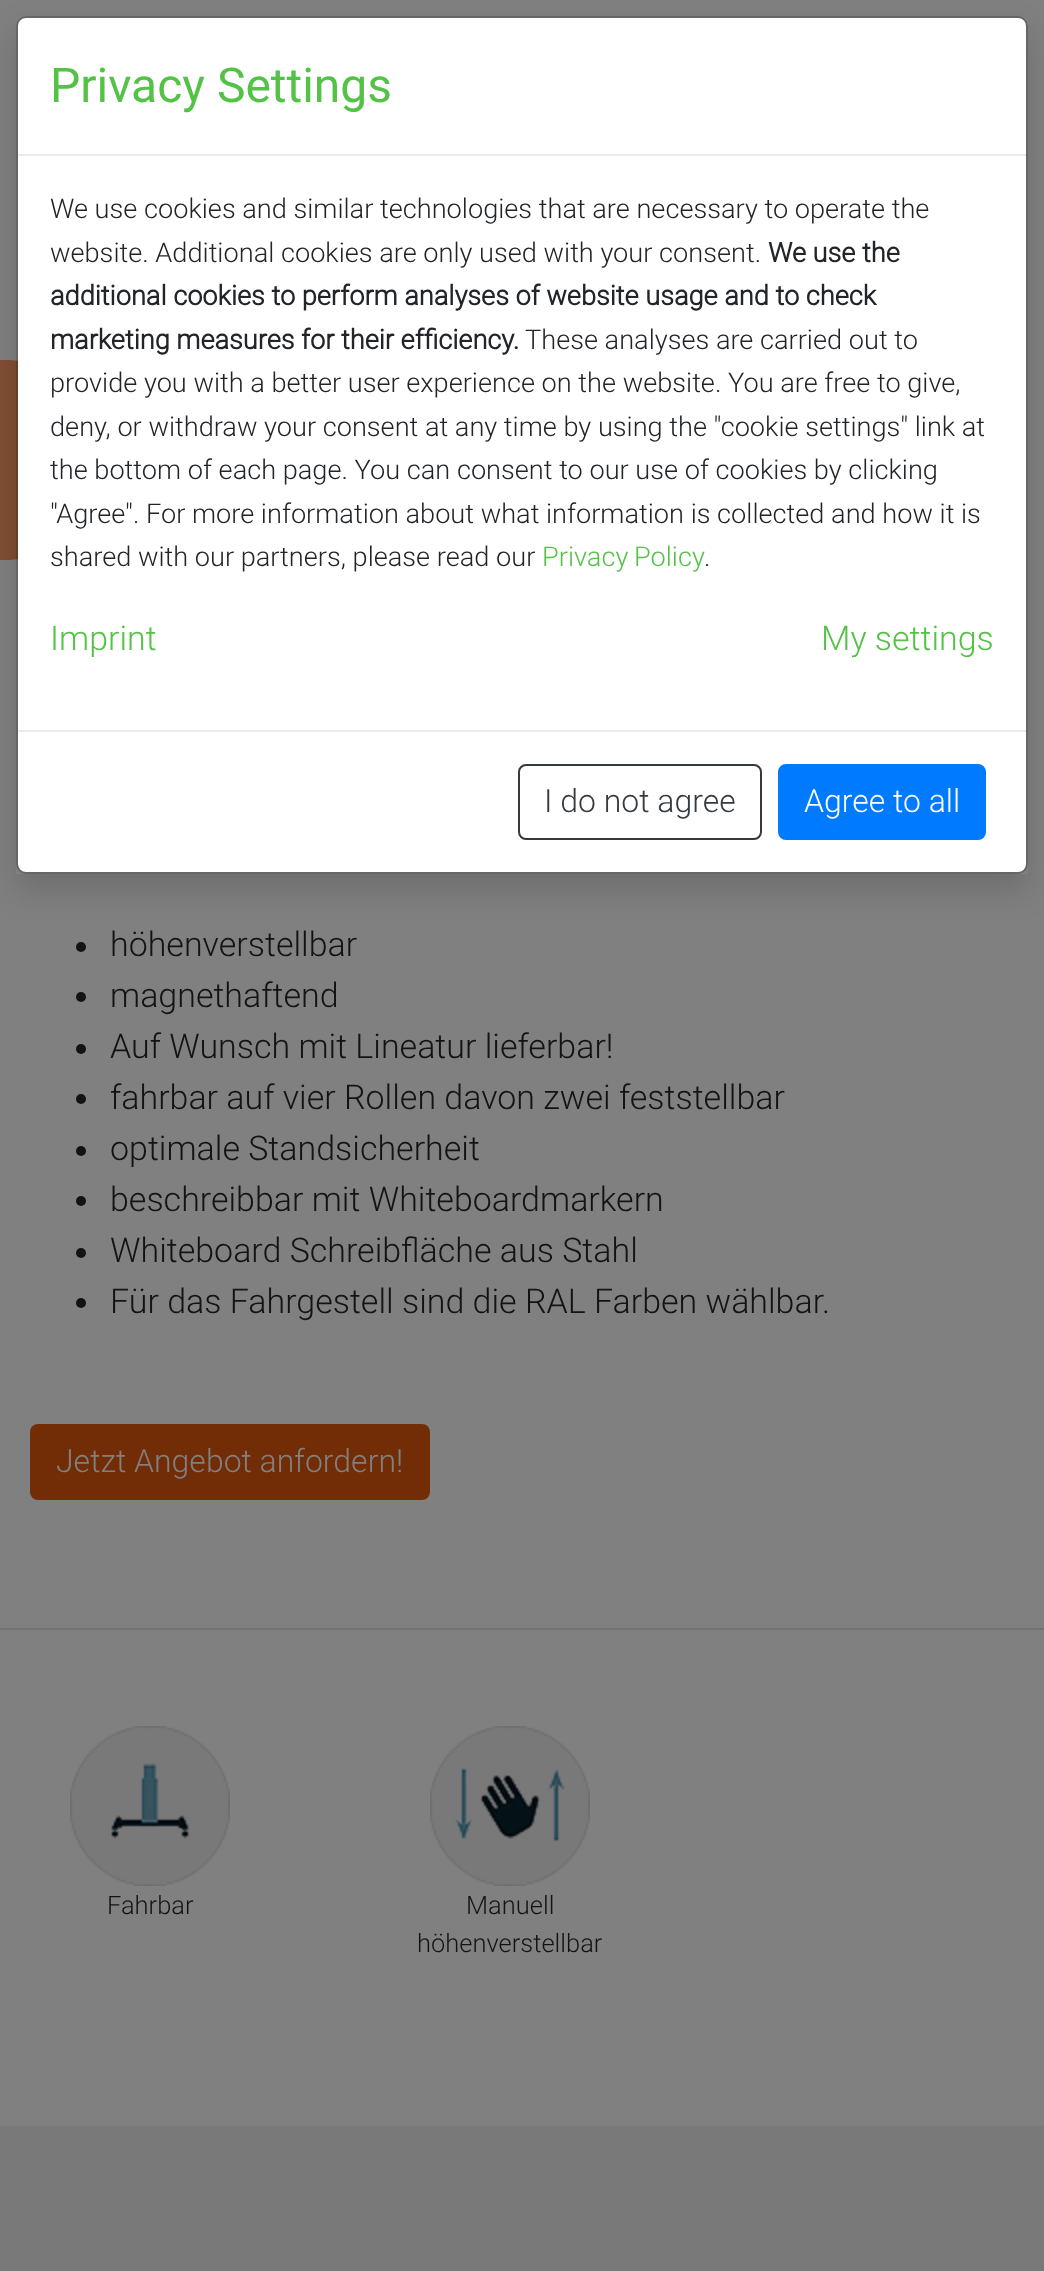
async function draw(canvas) {
  canvas.width = 1044;
  canvas.height = 2271;
  const ctx = canvas.getContext('2d');
  ctx.miterLimit = 4;
  ctx.fontKerning = 'normal';
  function label(s, x, y, font, color) {
    ctx.font = font;
    ctx.fillStyle = color;
    ctx.fillText(s, x, y);
  }
  function rect(x, y, w, h, color) {
    ctx.fillStyle = color;
    ctx.fillRect(x, y, w, h);
  }
  function roundedRect(x, y, w, h, r, color) {
    ctx.fillStyle = color;
    ctx.beginPath();
    ctx.roundRect(x, y, w, h, r);
    ctx.fill();
  }
  async function image(src, x, y, w, h) {
    const img = new Image();
    img.src = src;
    await img.decode();
    ctx.drawImage(img, x, y, w, h);
  }
  let path;

  rect(0, 0, 1044, 2271, '#808080');
  ctx.fillStyle = '#802d0099';
  ctx.beginPath();
  ctx.roundRect(0, 360, 50, 200, [0, 40, 40, 0]);
  ctx.fill();
  ctx.save();
  path = new Path2D('M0 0H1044V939H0ZM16 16H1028V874H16Z');
  ctx.clip(path, 'evenodd');
  ctx.fillStyle = '#00000026';
  ctx.filter = 'blur(16px)';
  ctx.beginPath();
  ctx.rect(16, 32, 1012, 858);
  ctx.fill();
  ctx.filter = 'none';
  ctx.restore();
  roundedRect(18, 18, 1008, 854, 8, '#fff');
  ctx.beginPath();
  ctx.roundRect(17, 17, 1010, 856, 9);
  ctx.strokeStyle = '#00000033';
  ctx.lineWidth = 2;
  ctx.stroke();
  rect(18, 154, 1008, 2, '#e9ecef');
  label('Privacy Settings', 50, 102, '48px Roboto', '#54c247');
  label('We use cookies and similar technologies that are necessary to operate the', 50, 218, '300 27.2px Roboto', '#212529');
  label('website. Additional cookies are only used with your consent.', 50, 262, '300 27.2px Roboto', '#212529');
  label('We use the', 768, 262, 'bold 27.2px Roboto', '#212529');
  label('additional cookies to perform analyses of website usage and to check', 50, 305, 'bold 27.2px Roboto', '#212529');
  label('marketing measures for their efficiency.', 50, 349, 'bold 27.2px Roboto', '#212529');
  label('These analyses are carried out to', 525, 349, '300 27.2px Roboto', '#212529');
  label('provide you with a better user experience on the website. You are free to give,', 50, 392, '300 27.2px Roboto', '#212529');
  label('deny, or withdraw your consent at any time by using the "cookie settings" link at', 50, 436, '300 27.2px Roboto', '#212529');
  label('the bottom of each page. You can consent to our use of cookies by clicking', 50, 479, '300 27.2px Roboto', '#212529');
  label('"Agree". For more information about what information is collected and how it is', 50, 523, '300 27.2px Roboto', '#212529');
  label('shared with our partners, please read our', 50, 566, '300 27.2px Roboto', '#212529');
  ctx.wordSpacing = '-1px';
  label('Privacy Policy', 542, 566, '300 27.2px Roboto', '#54c247');
  ctx.wordSpacing = '0px';
  label('.', 704, 566, '300 27.2px Roboto', '#212529');
  label('Imprint', 50, 650, '300 34px Roboto', '#54c247');
  label('My settings', 821, 650, '300 34px Roboto', '#54c247');
  rect(18, 730, 1008, 2, '#e9ecef');
  ctx.beginPath();
  ctx.roundRect(519, 765, 242, 74, 7);
  ctx.strokeStyle = '#343a40';
  ctx.stroke();
  label('I do not agree', 544, 812, '300 32px Roboto', '#343a40');
  ctx.fillStyle = '#007bff';
  ctx.beginPath();
  ctx.roundRect(779, 765, 206, 74, 7);
  ctx.fill();
  ctx.strokeStyle = '#007bff';
  ctx.stroke();
  label('Agree to all', 804, 812, '300 32px Roboto', '#fff');
  ctx.fillStyle = '#111315';
  ctx.beginPath();
  ctx.arc(81, 947, 5, 0, 2 * Math.PI);
  ctx.fill();
  label('höhenverstellbar', 110, 956, '300 34px Roboto', '#111315');
  ctx.beginPath();
  ctx.arc(81, 997, 5, 0, 2 * Math.PI);
  ctx.fill();
  label('magnethaftend', 110, 1007, '300 34px Roboto', '#111315');
  ctx.beginPath();
  ctx.arc(81, 1049, 5, 0, 2 * Math.PI);
  ctx.fill();
  label('Auf Wunsch mit Lineatur lieferbar!', 110, 1058, '300 34px Roboto', '#111315');
  ctx.beginPath();
  ctx.arc(81, 1099, 5, 0, 2 * Math.PI);
  ctx.fill();
  label('fahrbar auf vier Rollen davon zwei feststellbar', 110, 1109, '300 34px Roboto', '#111315');
  ctx.beginPath();
  ctx.arc(81, 1151, 5, 0, 2 * Math.PI);
  ctx.fill();
  label('optimale Standsicherheit', 110, 1160, '300 34px Roboto', '#111315');
  ctx.beginPath();
  ctx.arc(81, 1201, 5, 0, 2 * Math.PI);
  ctx.fill();
  label('beschreibbar mit Whiteboardmarkern', 110, 1211, '300 34px Roboto', '#111315');
  ctx.beginPath();
  ctx.arc(81, 1253, 5, 0, 2 * Math.PI);
  ctx.fill();
  label('Whiteboard Schreibfläche aus Stahl', 110, 1262, '300 34px Roboto', '#111315');
  ctx.beginPath();
  ctx.arc(81, 1303, 5, 0, 2 * Math.PI);
  ctx.fill();
  label('Für das Fahrgestell sind die RAL Farben wählbar.', 110, 1313, '300 34px Roboto', '#111315');
  roundedRect(30, 1424, 400, 76, 8, '#732d06');
  label('Jetzt Angebot anfordern!', 56, 1472, '300 32px Roboto', '#808080');
  rect(0, 1628, 1044, 2, '#737373');
  await image('assets/img1.png', 70, 1726, 160, 160);
  label('Fahrbar', 107, 1914, '300 25.5px Roboto', '#111315');
  await image('assets/img2.png', 430, 1726, 160, 160);
  label('Manuell', 466, 1914, '300 25.5px Roboto', '#111315');
  label('höhenverstellbar', 417, 1952, '300 25.5px Roboto', '#111315');
  rect(0, 2126, 1044, 145, '#7a7979');
}

draw(document.querySelector('canvas'));
